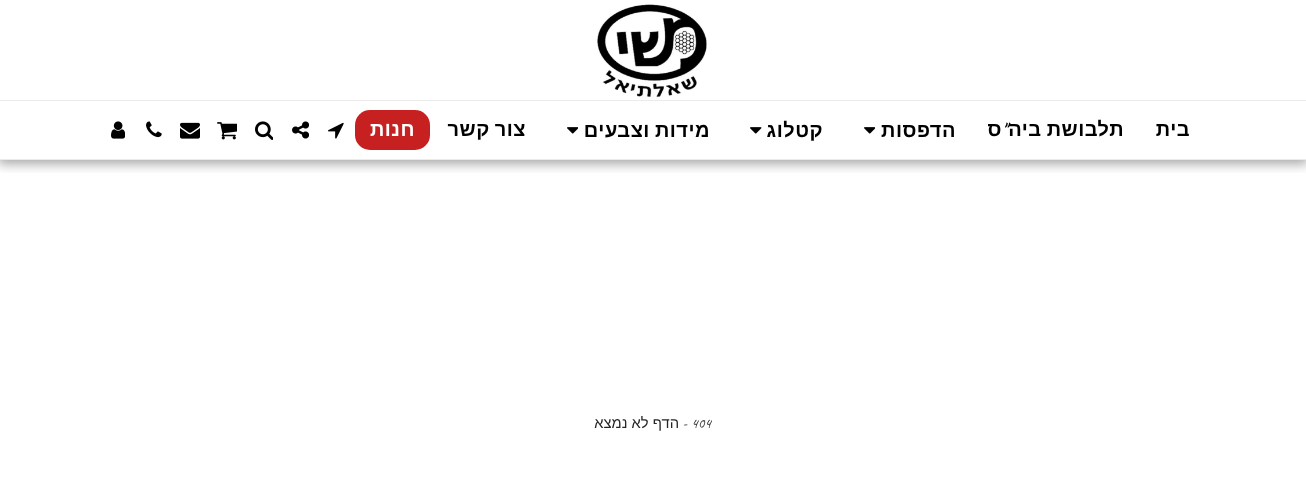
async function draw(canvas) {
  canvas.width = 1306;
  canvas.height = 481;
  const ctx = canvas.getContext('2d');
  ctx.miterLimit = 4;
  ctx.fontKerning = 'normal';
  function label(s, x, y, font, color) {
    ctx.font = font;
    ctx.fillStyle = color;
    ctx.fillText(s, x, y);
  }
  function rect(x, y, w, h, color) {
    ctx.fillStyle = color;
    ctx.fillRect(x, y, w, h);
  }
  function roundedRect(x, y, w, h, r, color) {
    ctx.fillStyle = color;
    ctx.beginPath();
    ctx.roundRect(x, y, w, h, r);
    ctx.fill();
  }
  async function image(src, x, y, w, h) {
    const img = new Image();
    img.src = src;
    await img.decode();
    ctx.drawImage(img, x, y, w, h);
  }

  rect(0, 0, 1306, 481, '#fff');
  ctx.save();
  ctx.beginPath();
  ctx.rect(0, 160, 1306, 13);
  ctx.clip();
  ctx.fillStyle = '#00000059';
  ctx.filter = 'blur(6px)';
  ctx.beginPath();
  ctx.rect(-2, 0, 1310, 164);
  ctx.fill();
  ctx.filter = 'none';
  ctx.restore();
  rect(0, 159, 1306, 1, '#ebebeb');
  await image('assets/img1.png', 597, 4, 110, 93);
  rect(0, 100, 1306, 1, '#ebebeb');
  ctx.letterSpacing = '0.5px';
  ctx.direction = 'rtl';
  label('בית', 1190, 136, 'bold 20px Liberation Sans', '#000');
  label('"', 1007, 136, 'bold 20px Caveat', '#000');
  ctx.wordSpacing = '-1px';
  label('תלבושת ביה', 1124, 136, 'bold 20px Liberation Sans', '#000');
  ctx.wordSpacing = '0px';
  label('ס', 1002, 136, 'bold 20px Liberation Sans', '#000');
  label('הדפסות', 956, 137, 'bold 20px Liberation Sans', '#000');
  await image('assets/img2.png', 864, 127, 11, 7);
  label('קטלוג', 823, 137, 'bold 20px Liberation Sans', '#000');
  await image('assets/img3.png', 750, 127, 12, 7);
  ctx.wordSpacing = '-1px';
  label('מידות וצבעים', 710, 137, 'bold 20px Liberation Sans', '#000');
  await image('assets/img2.png', 567, 127, 11, 7);
  label('צור קשר', 526, 136, 'bold 20px Liberation Sans', '#000');
  roundedRect(355, 110, 75, 40, 15, '#c62020');
  ctx.wordSpacing = '0px';
  label('חנות', 415, 136, 'bold 20px Liberation Sans', '#fff');
  await image('assets/img4.png', 328, 122, 16, 17);
  await image('assets/img5.png', 292, 121, 17, 18);
  await image('assets/img6.png', 255, 121, 18, 19);
  await image('assets/img7.png', 217, 122, 20, 18);
  await image('assets/img8.png', 180, 122, 20, 17);
  await image('assets/img9.png', 146, 121, 16, 17);
  await image('assets/img10.png', 111, 121, 14, 18);
  ctx.letterSpacing = '0px';
  ctx.direction = 'ltr';
  label('404', 691, 428, '14.75px Caveat', '#252525');
  ctx.direction = 'rtl';
  label('-', 687, 428, '14.75px Caveat', '#252525');
  label('הדף לא נמצא', 679, 428, '14.75px Liberation Sans', '#252525');
}

draw(document.querySelector('canvas'));
